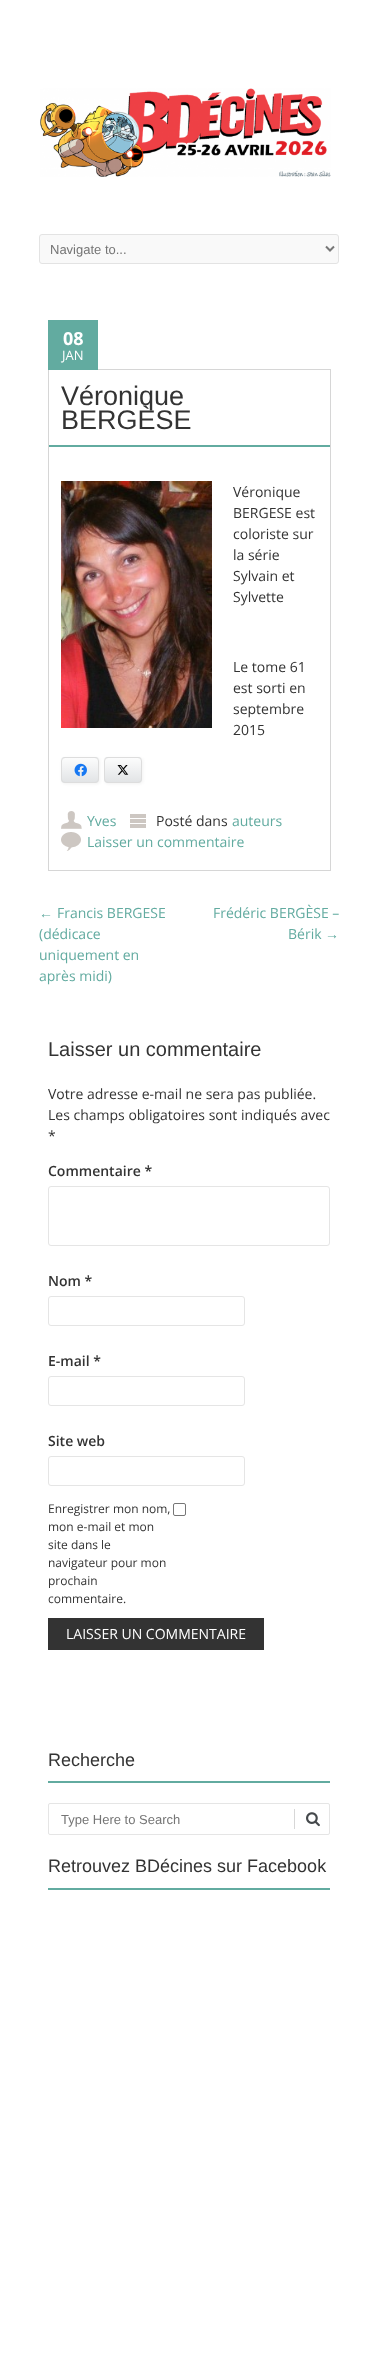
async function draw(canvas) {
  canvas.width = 378;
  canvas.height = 2365;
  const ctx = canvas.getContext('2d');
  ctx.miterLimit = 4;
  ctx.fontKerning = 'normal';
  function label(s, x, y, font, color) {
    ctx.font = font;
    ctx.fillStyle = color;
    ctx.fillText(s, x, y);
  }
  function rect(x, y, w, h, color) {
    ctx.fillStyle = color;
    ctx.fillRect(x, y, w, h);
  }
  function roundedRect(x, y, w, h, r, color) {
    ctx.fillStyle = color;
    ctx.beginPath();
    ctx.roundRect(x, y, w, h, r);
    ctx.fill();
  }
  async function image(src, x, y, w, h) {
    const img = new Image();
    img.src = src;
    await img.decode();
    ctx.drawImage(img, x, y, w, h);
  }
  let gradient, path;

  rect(0, 0, 378, 2365, '#fff');
  await image('assets/img1.png', 40, 88, 291, 89);
  ctx.fillStyle = '#f9f9f9';
  ctx.beginPath();
  ctx.roundRect(39.5, 234.5, 299, 29, 2.5);
  ctx.fill();
  ctx.strokeStyle = '#e3e3e3';
  ctx.stroke();
  path = new Path2D('M326 246.5L330 250.5L334 246.5');
  ctx.strokeStyle = '#777';
  ctx.lineWidth = 2;
  ctx.stroke(path);
  label('Navigate to...', 50, 254, '13px Liberation Sans', '#757575');
  ctx.strokeStyle = '#d6d6d6';
  ctx.lineWidth = 1;
  ctx.strokeRect(48.5, 369.5, 282, 501);
  rect(48, 320, 50, 50, '#62aba0');
  label('08', 63, 345, 'bold 18px Open Sans', '#fff');
  label('JAN', 62, 360, '13px Open Sans', '#fff');
  rect(49, 445, 281, 2, '#62aba0');
  label('Véronique', 61, 405, '27px Liberation Sans', '#333');
  label('BERGÈSE', 61, 429, '27px Liberation Sans', '#333');
  await image('assets/img2.png', 61, 481, 151, 247);
  label('Véronique', 233, 497, '14px Open Sans', '#333');
  label('BERGESE est', 233, 518, '14px Open Sans', '#333');
  label('coloriste sur', 233, 539, '14px Open Sans', '#333');
  label('la série', 233, 560, '14px Open Sans', '#333');
  label('Sylvain et', 233, 581, '14px Open Sans', '#333');
  label('Sylvette', 233, 602, '14px Open Sans', '#333');
  label('Le tome 61', 233, 672, '14px Open Sans', '#333');
  label('est sorti en', 233, 693, '14px Open Sans', '#333');
  label('septembre', 233, 714, '14px Open Sans', '#333');
  label('2015', 233, 735, '14px Open Sans', '#333');
  ctx.fillStyle = '#0000000d';
  ctx.filter = 'blur(1.5px)';
  ctx.beginPath();
  ctx.roundRect(62, 758, 38, 26, 4);
  ctx.fill();
  ctx.filter = 'none';
  roundedRect(61, 757, 38, 26, 4, '#e2e4e6');
  ctx.save();
  ctx.beginPath();
  ctx.roundRect(61, 757, 38, 26, 4);
  ctx.clip();
  gradient = ctx.createLinearGradient(80, 758, 80, 782);
  gradient.addColorStop(0, '#ffffffe6');
  gradient.addColorStop(1, '#ffffff00');
  ctx.fillStyle = gradient;
  ctx.fillRect(61, 758, 38, 23);
  ctx.restore();
  ctx.beginPath();
  ctx.roundRect(61.5, 757.5, 37, 25, 3.5);
  ctx.strokeStyle = '#ddd';
  ctx.stroke();
  await image('assets/img3.png', 74, 763, 13, 14);
  ctx.fillStyle = '#0000000d';
  ctx.filter = 'blur(1.5px)';
  ctx.beginPath();
  ctx.roundRect(105, 758, 38, 26, 4);
  ctx.fill();
  ctx.filter = 'none';
  roundedRect(104, 757, 38, 26, 4, '#e2e4e6');
  ctx.save();
  ctx.beginPath();
  ctx.roundRect(104, 757, 38, 26, 4);
  ctx.clip();
  gradient = ctx.createLinearGradient(123, 758, 123, 782);
  gradient.addColorStop(0, '#ffffffe6');
  gradient.addColorStop(1, '#ffffff00');
  ctx.fillStyle = gradient;
  ctx.fillRect(104, 758, 38, 23);
  ctx.restore();
  ctx.beginPath();
  ctx.roundRect(104.5, 757.5, 37, 25, 3.5);
  ctx.stroke();
  await image('assets/img4.png', 117, 765, 12, 10);
  await image('assets/img5.png', 61, 811, 21, 18);
  label('Yves', 87, 826, '14px Open Sans', '#62aba0');
  await image('assets/img6.png', 130, 814, 16, 14);
  label('Posté dans', 156, 826, '14px Open Sans', '#333');
  label('auteurs', 232, 826, '14px Open Sans', '#62aba0');
  await image('assets/img7.png', 61, 832, 20, 19);
  label('Laisser un commentaire', 87, 847, '14px Open Sans', '#62aba0');
  label('←', 39, 918, '14px Liberation Sans', '#62aba0');
  label('Francis BERGESE', 57, 918, '14px Open Sans', '#62aba0');
  label('(dédicace', 39, 939, '14px Open Sans', '#62aba0');
  label('uniquement en', 39, 960, '14px Open Sans', '#62aba0');
  label('après midi)', 39, 981, '14px Open Sans', '#62aba0');
  label('Frédéric BERGÈSE –', 213, 918, '14px Open Sans', '#62aba0');
  label('Bérik', 288, 939, '14px Open Sans', '#62aba0');
  label('→', 325, 939, '14px Liberation Sans', '#62aba0');
  label('Laisser un commentaire', 48, 1056, '20px Liberation Sans', '#333');
  label('Votre adresse e-mail ne sera pas publiée.', 48, 1099, '14px Open Sans', '#333');
  label('Les champs obligatoires sont indiqués avec', 48, 1120, '14px Open Sans', '#333');
  label('*', 48, 1141, '14px Open Sans', '#333');
  label('Commentaire *', 48, 1176, '600 14px Open Sans', '#333');
  ctx.beginPath();
  ctx.roundRect(48.5, 1186.5, 281, 59, 2.5);
  ctx.strokeStyle = '#e5e5e5';
  ctx.stroke();
  label('Nom *', 48, 1286, '600 14px Open Sans', '#333');
  ctx.beginPath();
  ctx.roundRect(48.5, 1296.5, 196, 29, 2.5);
  ctx.stroke();
  label('E-mail *', 48, 1366, '600 14px Open Sans', '#333');
  ctx.beginPath();
  ctx.roundRect(48.5, 1376.5, 196, 29, 2.5);
  ctx.stroke();
  label('Site web', 48, 1446, '600 14px Open Sans', '#333');
  ctx.beginPath();
  ctx.roundRect(48.5, 1456.5, 196, 29, 2.5);
  ctx.stroke();
  label('Enregistrer mon nom,', 48, 1513, '12px Open Sans', '#333');
  label('mon e-mail et mon', 48, 1531, '12px Open Sans', '#333');
  label('site dans le', 48, 1549, '12px Open Sans', '#333');
  label('navigateur pour mon', 48, 1567, '12px Open Sans', '#333');
  label('prochain', 48, 1585, '12px Open Sans', '#333');
  label('commentaire.', 48, 1603, '12px Open Sans', '#333');
  ctx.beginPath();
  ctx.roundRect(173.5, 1503.5, 12, 12, 1.5);
  ctx.strokeStyle = '#767676';
  ctx.stroke();
  rect(48, 1618, 216, 32, '#333');
  label('LAISSER UN COMMENTAIRE', 66, 1639, '14px Open Sans', '#fff');
  rect(48, 1781, 282, 2, '#62aba0');
  label('Recherche', 48, 1766, '18px Liberation Sans', '#333');
  ctx.beginPath();
  ctx.roundRect(48.5, 1803.5, 281, 31, 1.5);
  ctx.strokeStyle = '#e5e5e5';
  ctx.stroke();
  label('Type Here to Search', 61, 1824, '13px Liberation Sans', '#757575');
  rect(294, 1809, 1, 20, '#d7d7d7');
  await image('assets/img8.png', 306, 1812, 14, 15);
  rect(48, 1888, 282, 2, '#62aba0');
  label('Retrouvez BDécines sur Facebook', 48, 1872, '18px Liberation Sans', '#333');
}

draw(document.querySelector('canvas'));
